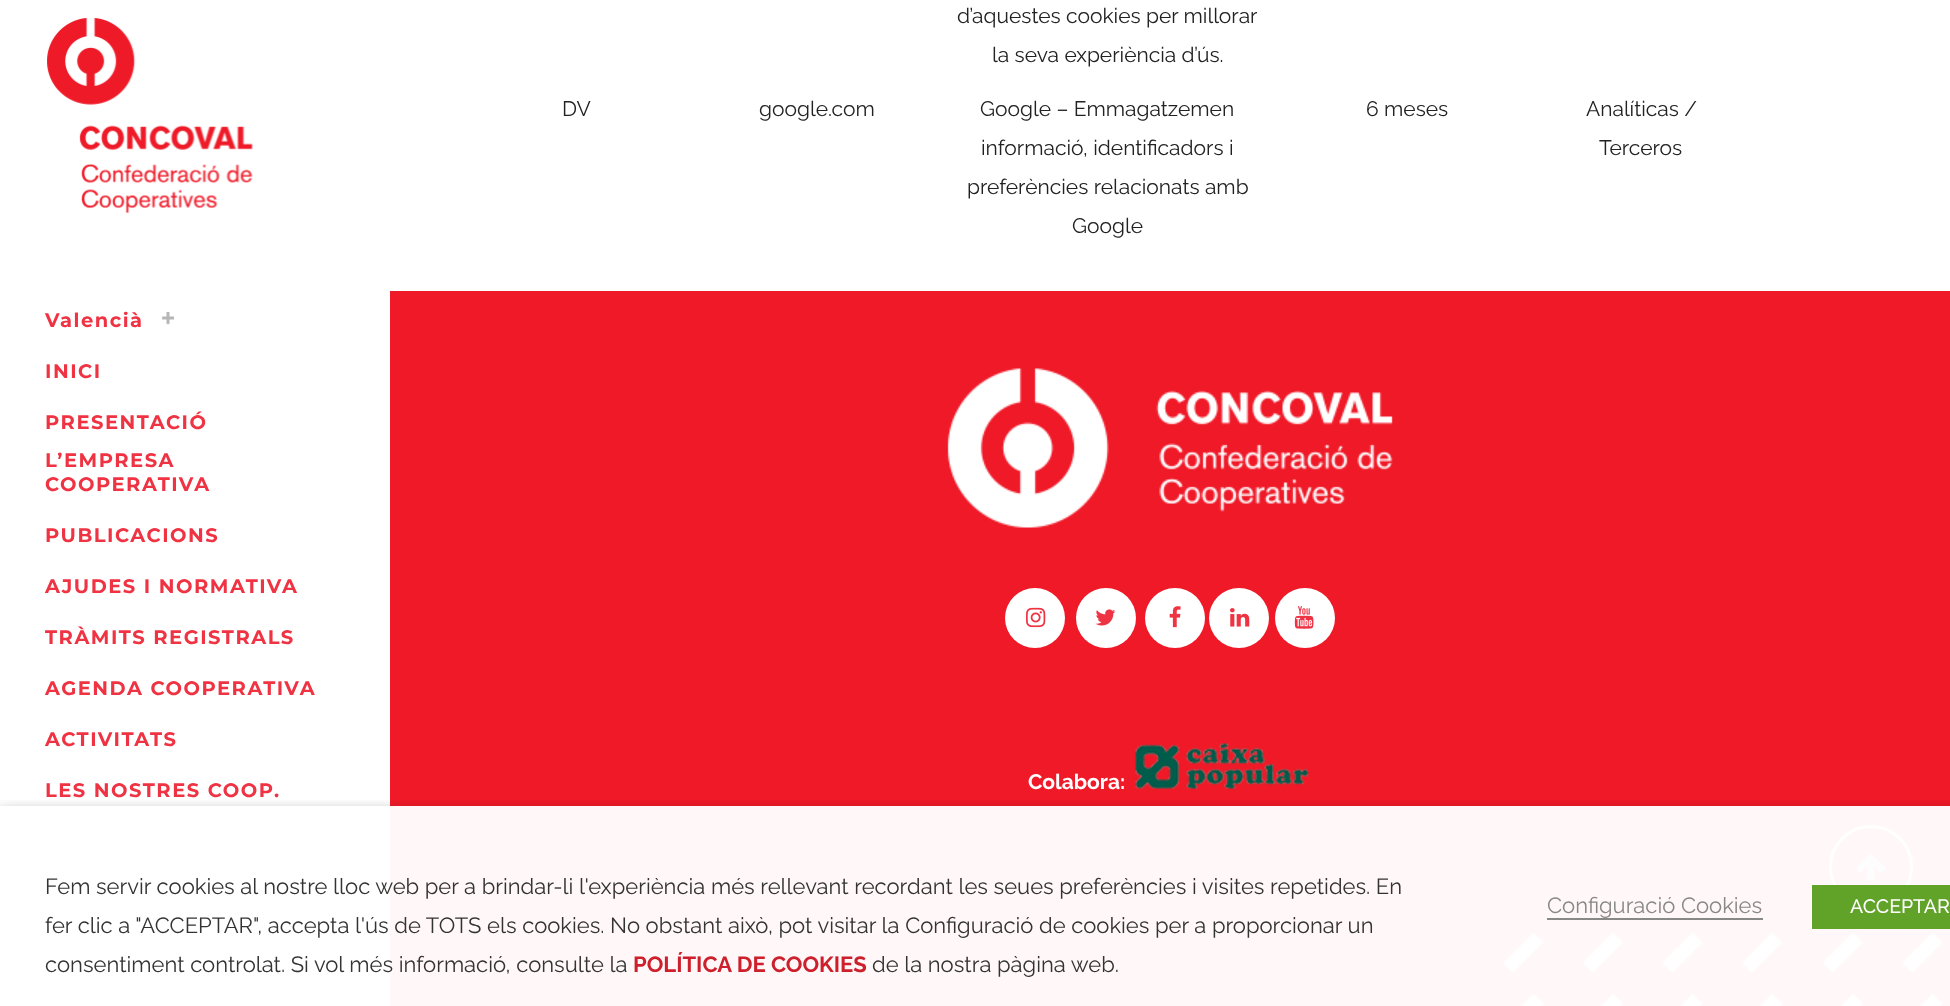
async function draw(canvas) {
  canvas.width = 1950;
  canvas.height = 1006;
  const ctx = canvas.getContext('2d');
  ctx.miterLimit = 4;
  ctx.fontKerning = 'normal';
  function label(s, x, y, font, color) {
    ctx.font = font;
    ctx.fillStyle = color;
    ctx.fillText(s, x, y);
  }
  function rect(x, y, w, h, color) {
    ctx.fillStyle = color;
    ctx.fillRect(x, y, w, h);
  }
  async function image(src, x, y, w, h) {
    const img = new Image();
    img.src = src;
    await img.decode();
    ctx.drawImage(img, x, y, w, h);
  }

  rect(0, 0, 1950, 1006, '#fff');
  label('d’aquestes cookies per millorar', 957, 23, '21px Raleway', '#222');
  label('la seva experiència d’ús.', 992, 62, '21px Raleway', '#222');
  label('DV', 562, 116, '21px Raleway', '#222');
  label('google.com', 759, 116, '21px Raleway', '#222');
  label('Google – Emmagatzemen', 980, 116, '21px Raleway', '#222');
  label('informació, identificadors i', 981, 155, '21px Raleway', '#222');
  label('preferències relacionats amb', 967, 194, '21px Raleway', '#222');
  label('Google', 1072, 233, '21px Raleway', '#222');
  label('6 meses', 1366, 116, '21px Raleway', '#222');
  label('Analíticas /', 1586, 116, '21px Raleway', '#222');
  label('Terceros', 1599, 155, '21px Raleway', '#222');
  await image('assets/img1.png', 47, 18, 206, 195);
  ctx.letterSpacing = '1.5px';
  label('Valencià', 45, 327, 'bold 19.5px Montserrat', '#ef3343');
  await image('assets/img2.png', 161, 312, 13, 13);
  label('INICI', 45, 378, 'bold 19.5px Montserrat', '#ef3343');
  label('PRESENTACIÓ', 45, 429, 'bold 19.5px Montserrat', '#ef3343');
  label('L’EMPRESA', 45, 467, 'bold 19.5px Montserrat', '#ef3343');
  label('COOPERATIVA', 45, 491, 'bold 19.5px Montserrat', '#ef3343');
  label('PUBLICACIONS', 45, 542, 'bold 19.5px Montserrat', '#ef3343');
  label('AJUDES I NORMATIVA', 45, 593, 'bold 19.5px Montserrat', '#ef3343');
  label('TRÀMITS REGISTRALS', 45, 644, 'bold 19.5px Montserrat', '#ef3343');
  label('AGENDA COOPERATIVA', 45, 695, 'bold 19.5px Montserrat', '#ef3343');
  label('ACTIVITATS', 45, 746, 'bold 19.5px Montserrat', '#ef3343');
  label('LES NOSTRES COOP.', 45, 797, 'bold 19.5px Montserrat', '#ef3343');
  await image('assets/img3.png', 390, 291, 1560, 715);
  await image('assets/img4.png', 947, 368, 446, 160);
  ctx.fillStyle = '#fff';
  ctx.beginPath();
  ctx.arc(1035, 618, 30, 0, 2 * Math.PI);
  ctx.fill();
  await image('assets/img5.png', 1026, 607, 20, 21);
  ctx.beginPath();
  ctx.arc(1106, 618, 30, 0, 2 * Math.PI);
  ctx.fill();
  await image('assets/img6.png', 1095, 609, 21, 17);
  ctx.beginPath();
  ctx.arc(1175, 618, 30, 0, 2 * Math.PI);
  ctx.fill();
  await image('assets/img7.png', 1169, 606, 12, 22);
  ctx.beginPath();
  ctx.arc(1239, 618, 30, 0, 2 * Math.PI);
  ctx.fill();
  await image('assets/img8.png', 1230, 608, 20, 19);
  ctx.beginPath();
  ctx.arc(1305, 618, 30, 0, 2 * Math.PI);
  ctx.fill();
  await image('assets/img9.png', 1294, 606, 20, 23);
  ctx.letterSpacing = '0px';
  label('Colabora:', 1028, 789, 'bold 21px Raleway', '#fff');
  await image('assets/img10.png', 1135, 743, 174, 46);
  ctx.beginPath();
  ctx.arc(1871, 867, 40.5, 0, 2 * Math.PI);
  ctx.strokeStyle = '#e8e8e8';
  ctx.lineWidth = 3;
  ctx.stroke();
  await image('assets/img11.png', 1856, 854, 30, 28);
  ctx.save();
  ctx.beginPath();
  ctx.rect(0, 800, 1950, 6);
  ctx.clip();
  ctx.fillStyle = '#00000080';
  ctx.filter = 'blur(7.5px)';
  ctx.beginPath();
  ctx.rect(0, 813, 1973, 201);
  ctx.fill();
  ctx.filter = 'none';
  ctx.restore();
  rect(390, 806, 1560, 200, '#fffffff7');
  label('Fem servir cookies al nostre lloc web per a brindar-li l\'experiència més rellevant recordant les seues preferències i visites repetides. En', 45, 894, '22px Raleway', '#333');
  label('fer clic a "ACCEPTAR", accepta l\'ús de TOTS els cookies. No obstant això, pot visitar la Configuració de cookies per a proporcionar un', 45, 933, '22px Raleway', '#333');
  label('consentiment controlat. Si vol més informació, consulte la', 45, 972, '22px Raleway', '#333');
  label('POLÍTICA DE COOKIES', 633, 972, 'bold 22px Raleway', '#cd202c');
  label('de la nostra pàgina web.', 872, 972, '22px Raleway', '#333');
  label('Configuració Cookies', 1547, 913, '22px Raleway', '#898888');
  rect(1547, 918, 216, 2, '#898888');
  rect(1812, 885, 138, 44, '#61a229');
  label('ACCEPTAR', 1850, 913, '500 19.5px Raleway', '#fff');
}

draw(document.querySelector('canvas'));
